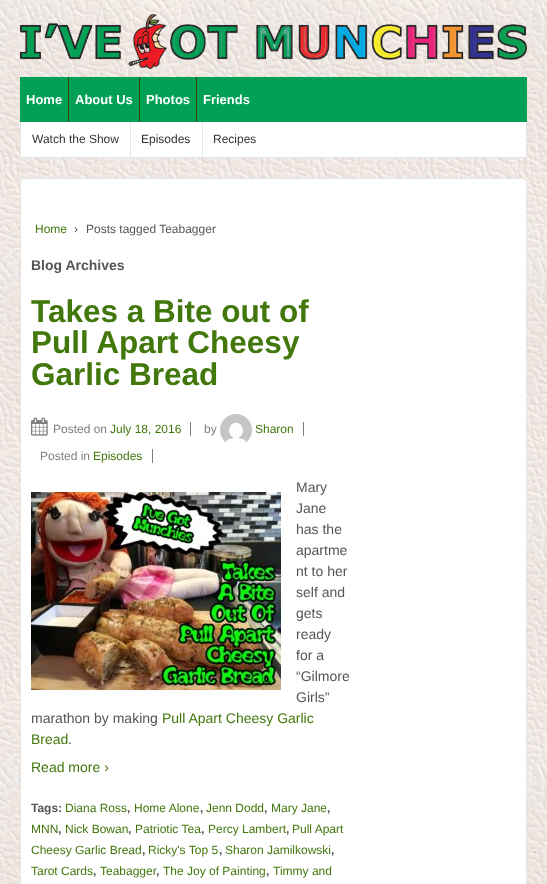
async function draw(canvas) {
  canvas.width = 547;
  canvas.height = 884;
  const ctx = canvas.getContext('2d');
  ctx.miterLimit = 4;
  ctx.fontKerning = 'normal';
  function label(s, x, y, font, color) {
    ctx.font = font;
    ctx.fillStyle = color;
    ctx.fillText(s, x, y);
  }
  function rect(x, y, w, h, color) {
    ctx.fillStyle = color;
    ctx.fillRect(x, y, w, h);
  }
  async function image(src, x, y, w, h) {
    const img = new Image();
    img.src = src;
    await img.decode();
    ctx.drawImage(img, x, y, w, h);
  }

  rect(0, 0, 547, 884, '#fff');
  await image('assets/img1.png', 0, 0, 547, 884);
  await image('assets/img2.png', 20, 14, 507, 55);
  rect(20, 77, 507, 45, '#00a055');
  label('Home', 26, 104, 'bold 13px Liberation Sans', '#fff');
  rect(68, 77, 1, 45, '#284807');
  label('About Us', 75, 104, 'bold 13px Liberation Sans', '#fff');
  rect(139, 77, 1, 45, '#284807');
  label('Photos', 146, 104, 'bold 13px Liberation Sans', '#fff');
  rect(196, 77, 1, 45, '#284807');
  label('Friends', 203, 104, 'bold 13px Liberation Sans', '#fff');
  rect(21, 122, 505, 35, '#fff');
  rect(526, 122, 1, 36, '#e5e5e5');
  rect(20, 157, 507, 1, '#e5e5e5');
  rect(20, 122, 1, 36, '#e5e5e5');
  label('Watch the Show', 32, 143, '12px Liberation Sans', '#333');
  rect(130, 122, 1, 35, '#e5e5e5');
  label('Episodes', 141, 143, '12px Liberation Sans', '#333');
  rect(202, 122, 1, 35, '#e5e5e5');
  label('Recipes', 213, 143, '12px Liberation Sans', '#333');
  ctx.fillStyle = '#fff';
  ctx.beginPath();
  ctx.roundRect(20.5, 178.5, 506, 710, 3.5);
  ctx.fill();
  ctx.strokeStyle = '#e5e5e5';
  ctx.stroke();
  label('Home', 35, 233, '12px Liberation Sans', '#41770b');
  label('›', 74, 233, '12px Liberation Sans', '#555');
  label('Posts tagged Teabagger', 86, 233, '12px Liberation Sans', '#555');
  label('Blog Archives', 31, 270, 'bold 14px Liberation Sans', '#555');
  label('Takes a Bite out of', 31, 322, 'bold 31.5px Liberation Sans', '#41770b');
  label('Pull Apart Cheesy', 31, 353, 'bold 31.5px Liberation Sans', '#41770b');
  label('Garlic Bread', 31, 385, 'bold 31.5px Liberation Sans', '#41770b');
  await image('assets/img3.png', 31, 417, 17, 19);
  label('Posted on', 53, 433, '12px Liberation Sans', '#7e7e7e');
  label('July 18, 2016', 110, 433, '12px Liberation Sans', '#41770b');
  rect(190, 422, 1, 14, '#7e7e7e');
  label('by', 204, 433, '12px Liberation Sans', '#7e7e7e');
  await image('assets/img4.png', 220, 414, 32, 30);
  label('Sharon', 255, 433, '12px Liberation Sans', '#41770b');
  rect(303, 422, 1, 14, '#7e7e7e');
  label('Posted in', 40, 460, '12px Liberation Sans', '#7e7e7e');
  label('Episodes', 93, 460, '12px Liberation Sans', '#41770b');
  rect(152, 449, 1, 14, '#7e7e7e');
  label('Mary', 296, 492, '14px Liberation Sans', '#555');
  label('Jane', 296, 513, '14px Liberation Sans', '#555');
  label('has the', 296, 534, '14px Liberation Sans', '#555');
  label('apartme', 296, 555, '14px Liberation Sans', '#555');
  label('nt to her', 296, 576, '14px Liberation Sans', '#555');
  label('self and', 296, 597, '14px Liberation Sans', '#555');
  label('gets', 296, 618, '14px Liberation Sans', '#555');
  label('ready', 296, 639, '14px Liberation Sans', '#555');
  label('for a', 296, 660, '14px Liberation Sans', '#555');
  label('“Gilmore', 296, 681, '14px Liberation Sans', '#555');
  label('Girls”', 296, 702, '14px Liberation Sans', '#555');
  label('marathon by making', 31, 723, '14px Liberation Sans', '#555');
  label('Pull Apart Cheesy Garlic', 162, 723, '14px Liberation Sans', '#41770b');
  label('Bread', 31, 744, '14px Liberation Sans', '#41770b');
  label('.', 68, 744, '14px Liberation Sans', '#555');
  await image('assets/img5.png', 31, 492, 250, 198);
  label('Read more ›', 31, 772, '14px Liberation Sans', '#41770b');
  label('Tags:', 31, 812, 'bold 12px Liberation Sans', '#555');
  label('Diana Ross', 65, 812, '12px Liberation Sans', '#41770b');
  label(',', 127, 812, 'bold 12px Liberation Sans', '#555');
  label('Home Alone', 134, 812, '12px Liberation Sans', '#41770b');
  label(',', 200, 812, 'bold 12px Liberation Sans', '#555');
  label('Jenn Dodd', 206, 812, '12px Liberation Sans', '#41770b');
  label(',', 264, 812, 'bold 12px Liberation Sans', '#555');
  label('Mary Jane', 271, 812, '12px Liberation Sans', '#41770b');
  label(',', 327, 812, 'bold 12px Liberation Sans', '#555');
  label('MNN', 31, 833, '12px Liberation Sans', '#41770b');
  label(',', 58, 833, 'bold 12px Liberation Sans', '#555');
  label('Nick Bowan', 65, 833, '12px Liberation Sans', '#41770b');
  label(',', 128, 833, 'bold 12px Liberation Sans', '#555');
  label('Patriotic Tea', 135, 833, '12px Liberation Sans', '#41770b');
  label(',', 201, 833, 'bold 12px Liberation Sans', '#555');
  label('Percy Lambert', 208, 833, '12px Liberation Sans', '#41770b');
  label(',', 286, 833, 'bold 12px Liberation Sans', '#555');
  label('Pull Apart', 292, 833, '12px Liberation Sans', '#41770b');
  label('Cheesy Garlic Bread', 31, 854, '12px Liberation Sans', '#41770b');
  label(',', 142, 854, 'bold 12px Liberation Sans', '#555');
  label('Ricky\'s Top 5', 148, 854, '12px Liberation Sans', '#41770b');
  label(',', 219, 854, 'bold 12px Liberation Sans', '#555');
  label('Sharon Jamilkowski', 225, 854, '12px Liberation Sans', '#41770b');
  label(',', 331, 854, 'bold 12px Liberation Sans', '#555');
  label('Tarot Cards', 31, 875, '12px Liberation Sans', '#41770b');
  label(',', 93, 875, 'bold 12px Liberation Sans', '#555');
  label('Teabagger', 100, 875, '12px Liberation Sans', '#41770b');
  label(',', 156, 875, 'bold 12px Liberation Sans', '#555');
  label('The Joy of Painting', 163, 875, '12px Liberation Sans', '#41770b');
  label(',', 266, 875, 'bold 12px Liberation Sans', '#555');
  label('Timmy and', 273, 875, '12px Liberation Sans', '#41770b');
}

draw(document.querySelector('canvas'));
